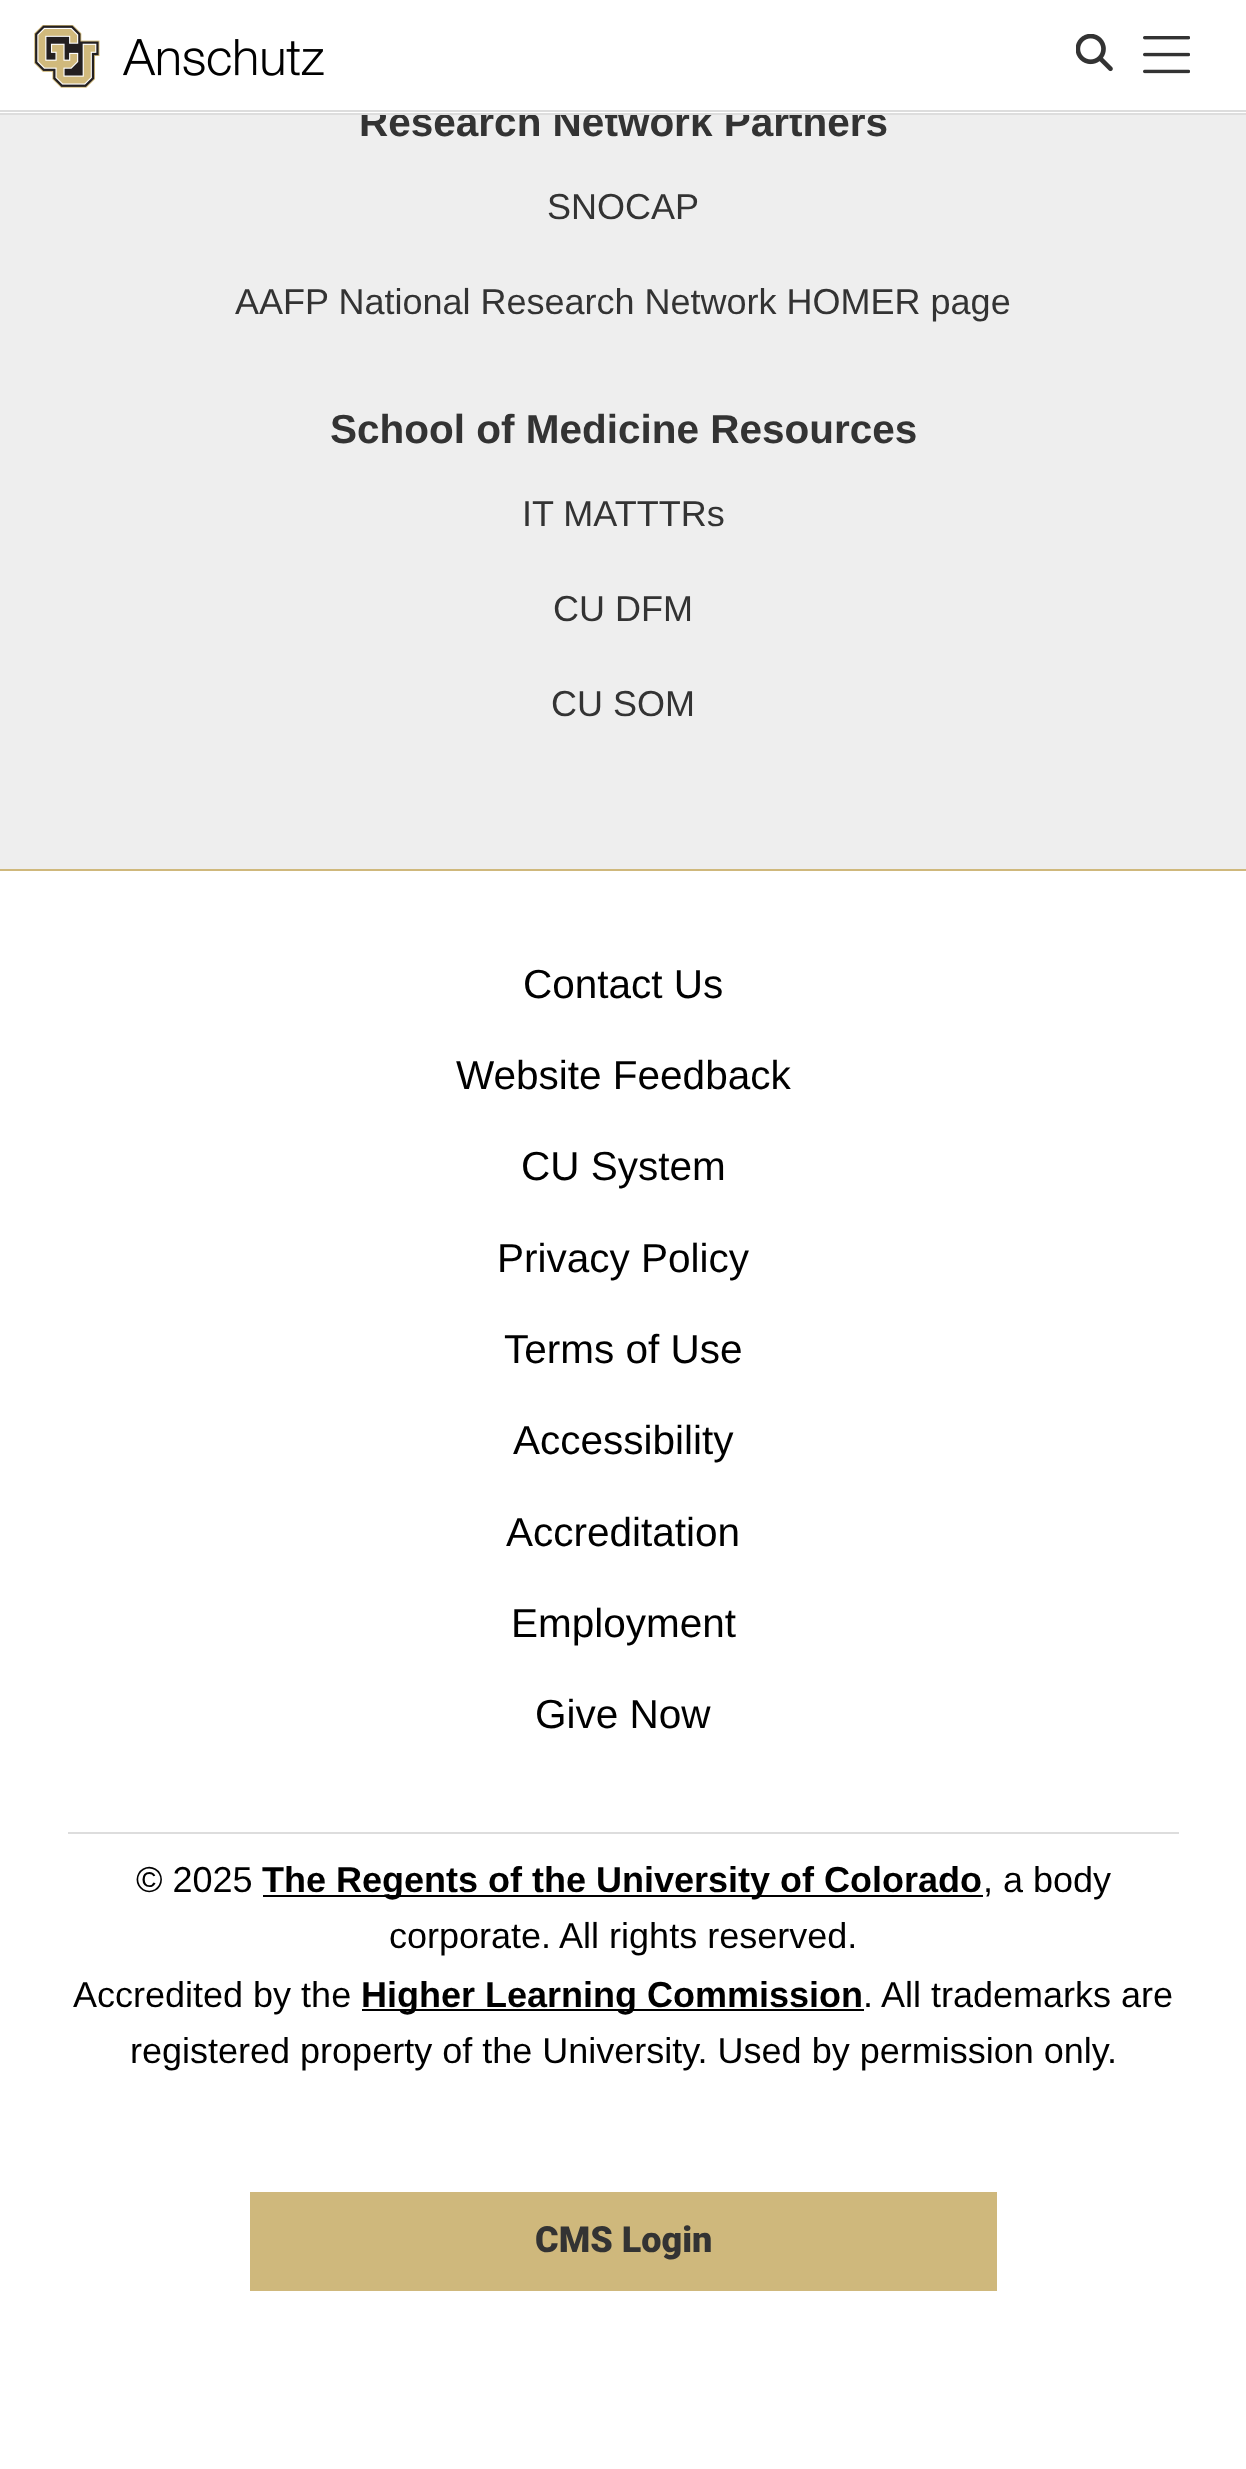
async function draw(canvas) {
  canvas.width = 1246;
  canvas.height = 2469;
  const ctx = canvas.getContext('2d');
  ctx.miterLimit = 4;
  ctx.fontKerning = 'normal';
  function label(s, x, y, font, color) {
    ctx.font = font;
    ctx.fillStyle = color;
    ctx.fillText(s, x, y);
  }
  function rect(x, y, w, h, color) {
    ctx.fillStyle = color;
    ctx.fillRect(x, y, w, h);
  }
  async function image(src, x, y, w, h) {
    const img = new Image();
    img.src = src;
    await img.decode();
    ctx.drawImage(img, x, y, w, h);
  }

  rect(0, 0, 1246, 2469, '#fff');
  rect(0, 115, 1246, 754, '#eee');
  label('Research Network Partners', 359, 136, 'bold 40.5px Liberation Sans', '#333');
  rect(361, 106, 437, 7, '#fff');
  rect(0, 110, 1246, 2, '#ddd');
  await image('assets/img1.png', 34, 25, 290, 63);
  await image('assets/img2.png', 1076, 34, 37, 38);
  await image('assets/img3.png', 1143, 36, 47, 38);
  label('SNOCAP', 547, 219, '36px Liberation Sans', '#333');
  label('AAFP National Research Network HOMER page', 235, 314, '36px Liberation Sans', '#333');
  label('School of Medicine Resources', 330, 443, 'bold 40.5px Liberation Sans', '#333');
  label('IT MATTTRs', 522, 526, '36px Liberation Sans', '#333');
  label('CU DFM', 553, 621, '36px Liberation Sans', '#333');
  label('CU SOM', 551, 716, '36px Liberation Sans', '#333');
  rect(0, 869, 1246, 2, '#cfb87c');
  label('Contact Us', 523, 998, '40.5px Liberation Sans', '#000');
  label('Website Feedback', 456, 1089, '40.5px Liberation Sans', '#000');
  label('CU System', 521, 1180, '40.5px Liberation Sans', '#000');
  label('Privacy Policy', 497, 1272, '40.5px Liberation Sans', '#000');
  label('Terms of Use', 504, 1363, '40.5px Liberation Sans', '#000');
  label('Accessibility', 513, 1454, '40.5px Liberation Sans', '#000');
  label('Accreditation', 506, 1546, '40.5px Liberation Sans', '#000');
  label('Employment', 511, 1637, '40.5px Liberation Sans', '#000');
  label('Give Now', 535, 1728, '40.5px Liberation Sans', '#000');
  rect(68, 1832, 1111, 2, '#ddd');
  label('© 2025', 136, 1892, '36px Liberation Sans', '#000');
  rect(263, 1895, 720, 2, '#000');
  label('The Regents of the University of Colorado', 262, 1892, 'bold 36px Liberation Sans', '#000');
  label(', a body', 983, 1892, '36px Liberation Sans', '#000');
  label('corporate. All rights reserved.', 389, 1948, '36px Liberation Sans', '#000');
  label('Accredited by the', 73, 2007, '36px Liberation Sans', '#000');
  rect(362, 2009, 502, 2, '#000');
  label('Higher Learning Commission', 361, 2007, 'bold 36px Liberation Sans', '#000');
  label('. All trademarks are', 863, 2007, '36px Liberation Sans', '#000');
  label('registered property of the University. Used by permission only.', 130, 2063, '36px Liberation Sans', '#000');
  rect(250, 2192, 747, 99, '#cfb87c');
  label('CMS Login', 535, 2252, '900 36px Roboto', '#333');
  rect(0, 113, 1246, 2, '#ddd');
}

draw(document.querySelector('canvas'));
